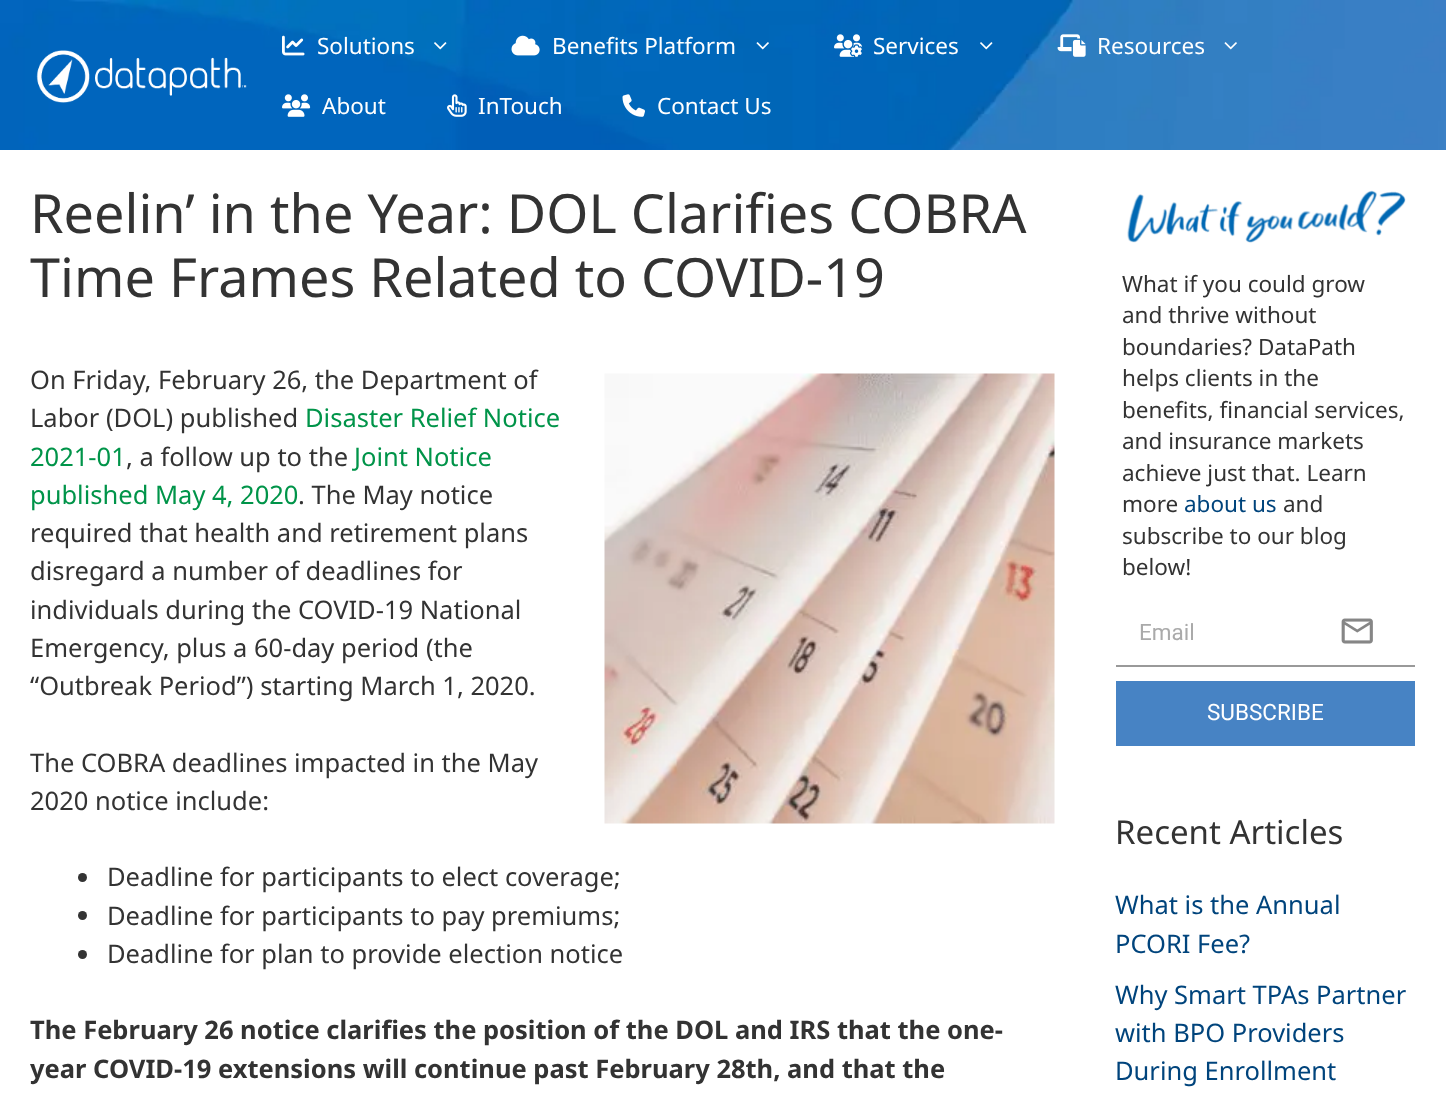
async function draw(canvas) {
  canvas.width = 1446;
  canvas.height = 1100;
  const ctx = canvas.getContext('2d');
  ctx.miterLimit = 4;
  ctx.fontKerning = 'normal';
  function label(s, x, y, font, color) {
    ctx.font = font;
    ctx.fillStyle = color;
    ctx.fillText(s, x, y);
  }
  function rect(x, y, w, h, color) {
    ctx.fillStyle = color;
    ctx.fillRect(x, y, w, h);
  }
  async function image(src, x, y, w, h) {
    const img = new Image();
    img.src = src;
    await img.decode();
    ctx.drawImage(img, x, y, w, h);
  }

  rect(0, 0, 1446, 1100, '#fff');
  await image('assets/img1.png', 0, 0, 1446, 150);
  await image('assets/img2.png', 36, 50, 211, 53);
  await image('assets/img3.png', 282, 35, 23, 21);
  label('Solutions', 317, 54, '22.5px Noto Sans', '#fff');
  await image('assets/img4.png', 434, 42, 13, 8);
  await image('assets/img5.png', 511, 35, 29, 21);
  label('Benefits Platform', 552, 54, '22.5px Noto Sans', '#fff');
  await image('assets/img6.png', 756, 42, 13, 8);
  await image('assets/img7.png', 834, 34, 29, 23);
  label('Services', 873, 54, '22.5px Noto Sans', '#fff');
  await image('assets/img8.png', 980, 42, 13, 8);
  await image('assets/img9.png', 1057, 34, 29, 23);
  label('Resources', 1097, 54, '22.5px Noto Sans', '#fff');
  await image('assets/img10.png', 1224, 42, 13, 8);
  await image('assets/img11.png', 282, 94, 29, 23);
  label('About', 322, 114, '22.5px Noto Sans', '#fff');
  await image('assets/img12.png', 447, 94, 20, 23);
  label('InTouch', 478, 114, '22.5px Noto Sans', '#fff');
  await image('assets/img13.png', 622, 94, 23, 23);
  label('Contact Us', 657, 114, '22.5px Noto Sans', '#fff');
  label('Reelin’ in the Year: DOL Clarifies COBRA', 30, 233, '54px Noto Sans', '#333');
  label('Time Frames Related to COVID-19', 30, 297, '54px Noto Sans', '#333');
  label('On Friday, February 26, the Department of', 30, 389, '25.5px Noto Sans', '#333');
  label('Labor (DOL) published', 30, 427, '25.5px Noto Sans', '#333');
  label('Disaster Relief Notice', 305, 427, '25.5px Noto Sans', '#009449');
  label('2021-01', 30, 466, '25.5px Noto Sans', '#009449');
  label(', a follow up to the', 126, 466, '25.5px Noto Sans', '#333');
  label('Joint Notice', 354, 466, '25.5px Noto Sans', '#009449');
  label('published May 4, 2020', 30, 504, '25.5px Noto Sans', '#009449');
  label('. The May notice', 298, 504, '25.5px Noto Sans', '#333');
  label('required that health and retirement plans', 30, 542, '25.5px Noto Sans', '#333');
  label('disregard a number of deadlines for', 30, 580, '25.5px Noto Sans', '#333');
  label('individuals during the COVID-19 National', 30, 619, '25.5px Noto Sans', '#333');
  label('Emergency, plus a 60-day period (the', 30, 657, '25.5px Noto Sans', '#333');
  label('“Outbreak Period”) starting March 1, 2020.', 30, 695, '25.5px Noto Sans', '#333');
  label('The COBRA deadlines impacted in the May', 30, 772, '25.5px Noto Sans', '#333');
  label('2020 notice include:', 30, 810, '25.5px Noto Sans', '#333');
  await image('assets/img14.png', 604, 373, 451, 451);
  ctx.beginPath();
  ctx.arc(82.5, 877.5, 4.5, 0, 2 * Math.PI);
  ctx.fill();
  label('Deadline for participants to elect coverage;', 107, 886, '25.5px Noto Sans', '#333');
  ctx.beginPath();
  ctx.arc(82.5, 915.5, 4.5, 0, 2 * Math.PI);
  ctx.fill();
  label('Deadline for participants to pay premiums;', 107, 925, '25.5px Noto Sans', '#333');
  ctx.beginPath();
  ctx.arc(82.5, 954.5, 4.5, 0, 2 * Math.PI);
  ctx.fill();
  label('Deadline for plan to provide election notice', 107, 963, '25.5px Noto Sans', '#333');
  label('The February 26 notice clarifies the position of the DOL and IRS that the one-', 30, 1039, 'bold 25.5px Noto Sans', '#333');
  label('year COVID-19 extensions will continue past February 28th, and that the', 30, 1078, 'bold 25.5px Noto Sans', '#333');
  await image('assets/img15.png', 1127, 190, 279, 53);
  label('What if you could grow', 1122, 292, '22.5px Noto Sans', '#333');
  label('and thrive without', 1122, 323, '22.5px Noto Sans', '#333');
  label('boundaries? DataPath', 1122, 355, '22.5px Noto Sans', '#333');
  label('helps clients in the', 1122, 386, '22.5px Noto Sans', '#333');
  label('benefits, financial services,', 1122, 418, '22.5px Noto Sans', '#333');
  label('and insurance markets', 1122, 449, '22.5px Noto Sans', '#333');
  label('achieve just that. Learn', 1122, 481, '22.5px Noto Sans', '#333');
  label('more', 1122, 512, '22.5px Noto Sans', '#333');
  label('about us', 1184, 512, '22.5px Noto Sans', '#00447c');
  label('and', 1283, 512, '22.5px Noto Sans', '#333');
  label('subscribe to our blog', 1122, 544, '22.5px Noto Sans', '#333');
  label('below!', 1122, 575, '22.5px Noto Sans', '#333');
  rect(1116, 665, 299, 2, '#999');
  label('Email', 1139, 640, '22.5px Roboto', '#aaa');
  await image('assets/img16.png', 1341, 618, 32, 26);
  rect(1116, 681, 299, 65, '#4783c4');
  label('SUBSCRIBE', 1207, 720, '22.5px Roboto', '#fff');
  label('Recent Articles', 1115, 844, '33px Noto Sans', '#333');
  label('What is the Annual', 1115, 914, '25.5px Noto Sans', '#00447c');
  label('PCORI Fee?', 1115, 953, '25.5px Noto Sans', '#00447c');
  label('Why Smart TPAs Partner', 1115, 1004, '25.5px Noto Sans', '#00447c');
  label('with BPO Providers', 1115, 1042, '25.5px Noto Sans', '#00447c');
  label('During Enrollment', 1115, 1080, '25.5px Noto Sans', '#00447c');
}

draw(document.querySelector('canvas'));
